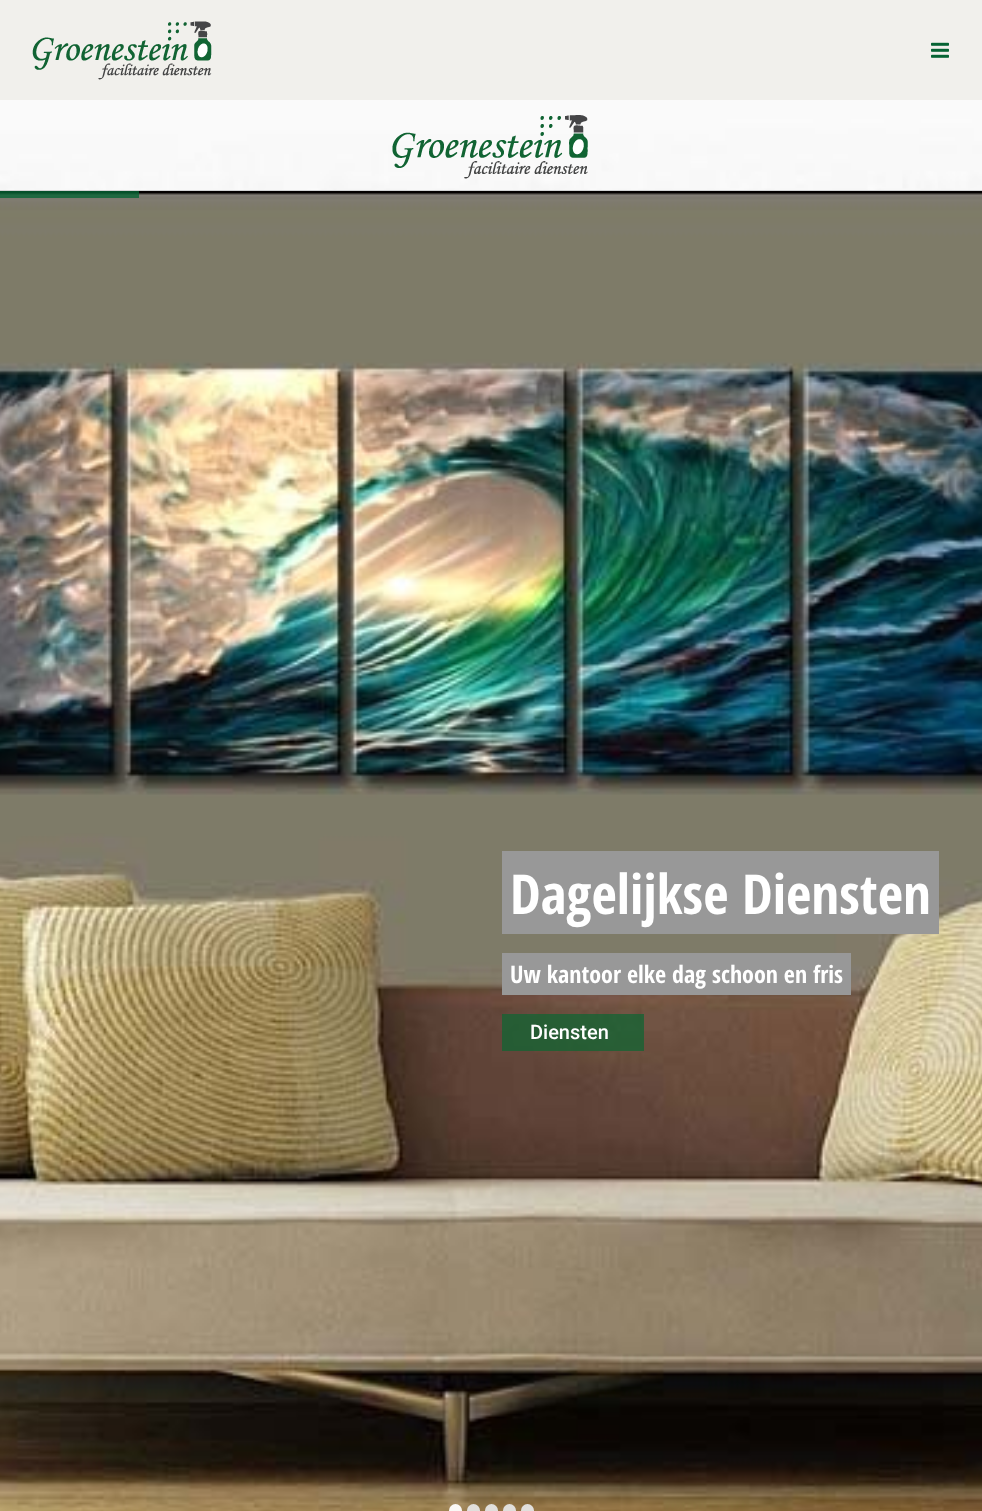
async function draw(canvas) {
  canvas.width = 982;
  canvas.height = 1511;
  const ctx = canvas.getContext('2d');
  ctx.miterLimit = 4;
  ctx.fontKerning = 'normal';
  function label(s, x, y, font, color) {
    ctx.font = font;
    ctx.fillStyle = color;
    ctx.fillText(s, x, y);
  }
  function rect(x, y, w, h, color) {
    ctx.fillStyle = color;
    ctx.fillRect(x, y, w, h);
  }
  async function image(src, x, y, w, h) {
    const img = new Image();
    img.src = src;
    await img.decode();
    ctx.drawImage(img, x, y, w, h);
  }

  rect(0, 0, 982, 1511, '#fff');
  rect(0, 0, 982, 100, '#f1f0ec');
  await image('assets/img1.png', 32, 21, 180, 59);
  await image('assets/img2.png', 931, 42, 18, 16);
  await image('assets/img3.png', 0, 100, 982, 90);
  await image('assets/img4.png', 392, 115, 196, 64);
  rect(0, 190, 982, 1, '#d2d3d4');
  await image('assets/img5.png', 0, 191, 982, 1320);
  rect(0, 191, 139, 7, '#066434cc');
  rect(502, 851, 437, 83, '#989898');
  label('Dagelijkse Diensten', 510, 914, 'bold 55px Open Sans Condensed', '#fff');
  rect(502, 953, 349, 42, '#989898');
  label('Uw kantoor elke dag schoon en fris', 510, 983, 'bold 24px Open Sans Condensed', '#fff');
  rect(502, 1014, 142, 37, '#126433bf');
  label('Diensten', 530, 1039, '500 20px Roboto', '#fff');
  ctx.fillStyle = '#fffffff0';
  ctx.beginPath();
  ctx.arc(455.5, 1510.5, 6.5, 0, 2 * Math.PI);
  ctx.fill();
  ctx.fillStyle = '#e5e5e5f0';
  ctx.beginPath();
  ctx.arc(473.5, 1510.5, 6.5, 0, 2 * Math.PI);
  ctx.fill();
  ctx.beginPath();
  ctx.arc(491.5, 1510.5, 6.5, 0, 2 * Math.PI);
  ctx.fill();
  ctx.beginPath();
  ctx.arc(509.5, 1510.5, 6.5, 0, 2 * Math.PI);
  ctx.fill();
  ctx.beginPath();
  ctx.arc(527.5, 1510.5, 6.5, 0, 2 * Math.PI);
  ctx.fill();
}

draw(document.querySelector('canvas'));
